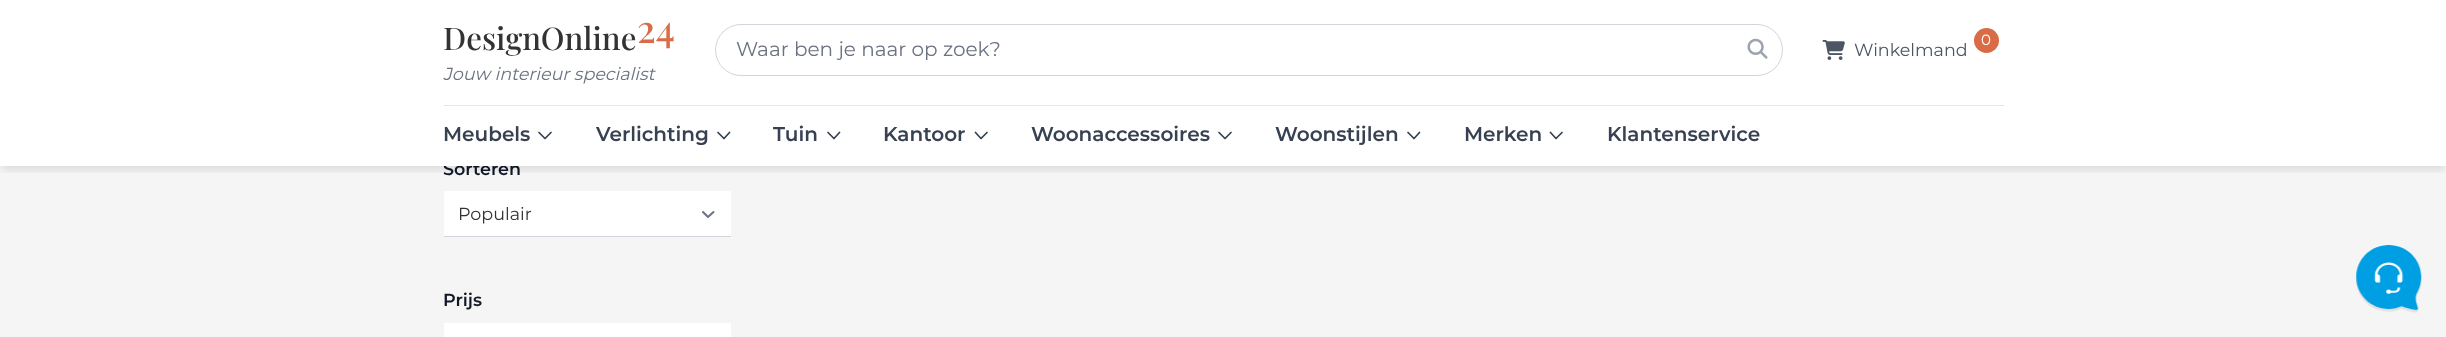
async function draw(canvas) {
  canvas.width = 2446;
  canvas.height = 337;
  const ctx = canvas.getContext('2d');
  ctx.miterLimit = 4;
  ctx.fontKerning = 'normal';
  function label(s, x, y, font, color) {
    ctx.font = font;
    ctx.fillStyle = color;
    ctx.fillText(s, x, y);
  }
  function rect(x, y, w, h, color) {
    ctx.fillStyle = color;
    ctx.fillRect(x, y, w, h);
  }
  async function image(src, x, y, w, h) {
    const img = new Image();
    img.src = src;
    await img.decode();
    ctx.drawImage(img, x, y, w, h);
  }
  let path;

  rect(0, 0, 2446, 337, '#f5f5f5');
  label('Sorteren', 443, 175, '600 17.5px Montserrat', '#111827');
  rect(0, 0, 2446, 166, '#fff');
  ctx.save();
  ctx.beginPath();
  ctx.rect(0, 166, 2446, 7);
  ctx.clip();
  ctx.fillStyle = '#0000001a';
  ctx.filter = 'blur(4px)';
  ctx.beginPath();
  ctx.rect(1, 6, 2444, 164);
  ctx.fill();
  ctx.filter = 'none';
  ctx.restore();
  label('DesignOnline', 443, 50, '500 31.25px Playfair Display', '#333');
  label('24', 637, 43, '500 38px Playfair Display', '#d96c47');
  label('Jouw interieur specialist', 443, 80, 'italic 17.5px Montserrat', '#6b7280');
  ctx.beginPath();
  ctx.roundRect(715.5, 24.5, 1067, 51, 25.5);
  ctx.strokeStyle = '#d1d5db';
  ctx.stroke();
  label('Waar ben je naar op zoek?', 736, 56, '20px Montserrat', '#6b7280');
  await image('assets/img1.png', 1747, 38, 21, 21);
  await image('assets/img2.png', 1822, 40, 23, 20);
  label('Winkelmand', 1854, 56, '17.5px Montserrat', '#4b5563');
  ctx.fillStyle = '#d96c47';
  ctx.beginPath();
  ctx.arc(1986.5, 40.5, 12.5, 0, 2 * Math.PI);
  ctx.fill();
  label('0', 1981, 45, '15px Montserrat', '#fff');
  rect(444, 105, 1560, 1, '#e5e7eb');
  label('Meubels', 443, 141, '600 20px Montserrat', '#374151');
  path = new Path2D('M551 132.5L545 138.5L539 132.5');
  ctx.strokeStyle = '#374151';
  ctx.lineWidth = 1.7;
  ctx.lineCap = 'round';
  ctx.lineJoin = 'round';
  ctx.stroke(path);
  label('Verlichting', 596, 141, '600 20px Montserrat', '#374151');
  path = new Path2D('M729.5 132.5L724 138.5L718 132.5');
  ctx.stroke(path);
  label('Tuin', 773, 141, '600 20px Montserrat', '#374151');
  path = new Path2D('M839.5 132.5L834 138.5L828 132.5');
  ctx.stroke(path);
  label('Kantoor', 883, 141, '600 20px Montserrat', '#374151');
  path = new Path2D('M987 132.5L981 138.5L975.5 132.5');
  ctx.stroke(path);
  label('Woonaccessoires', 1031, 141, '600 20px Montserrat', '#374151');
  path = new Path2D('M1231 132.5L1225 138.5L1219 132.5');
  ctx.stroke(path);
  label('Woonstijlen', 1275, 141, '600 20px Montserrat', '#374151');
  path = new Path2D('M1419.5 132.5L1414 138.5L1408 132.5');
  ctx.stroke(path);
  label('Merken', 1464, 141, '600 20px Montserrat', '#374151');
  path = new Path2D('M1562 132.5L1556 138.5L1550.5 132.5');
  ctx.stroke(path);
  label('Klantenservice', 1607, 141, '600 20px Montserrat', '#374151');
  rect(444, 191, 287, 45, '#fff');
  path = new Path2D('M703 212L708 217L713.5 212');
  ctx.strokeStyle = '#6b7280';
  ctx.lineWidth = 2;
  ctx.stroke(path);
  rect(444, 236, 287, 1, '#d1d5db');
  label('Populair', 458, 220, '17.5px Montserrat', '#333');
  label('Prijs', 443, 306, '600 17.5px Montserrat', '#111827');
  rect(444, 323, 287, 14, '#fff');
  await image('assets/img3.png', 2356, 245, 66, 68);
}

draw(document.querySelector('canvas'));
